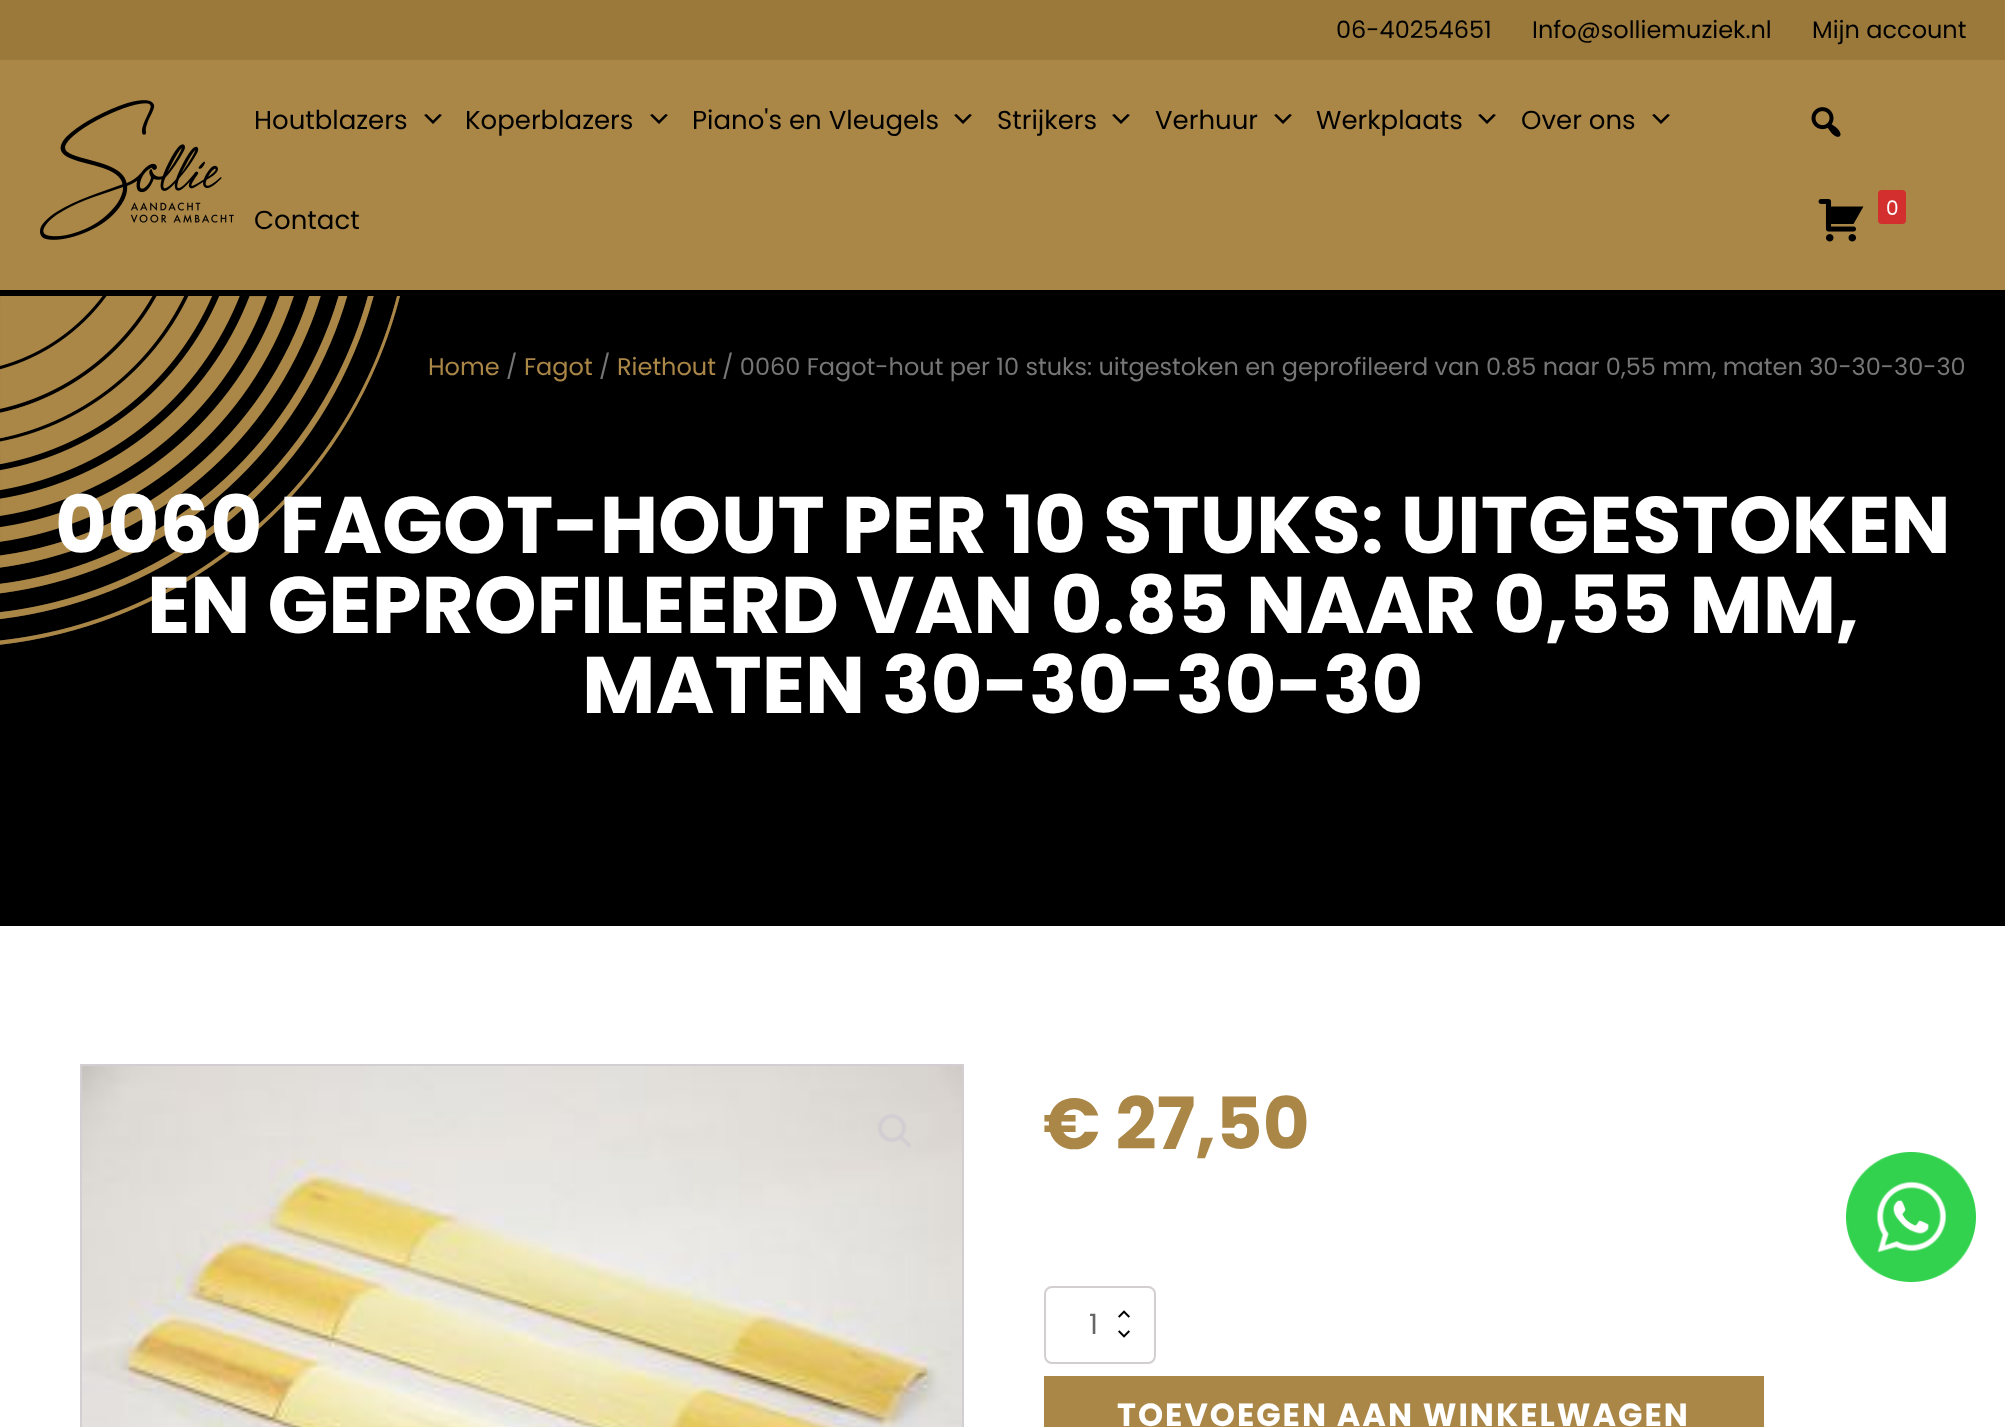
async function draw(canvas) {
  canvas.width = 2005;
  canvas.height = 1427;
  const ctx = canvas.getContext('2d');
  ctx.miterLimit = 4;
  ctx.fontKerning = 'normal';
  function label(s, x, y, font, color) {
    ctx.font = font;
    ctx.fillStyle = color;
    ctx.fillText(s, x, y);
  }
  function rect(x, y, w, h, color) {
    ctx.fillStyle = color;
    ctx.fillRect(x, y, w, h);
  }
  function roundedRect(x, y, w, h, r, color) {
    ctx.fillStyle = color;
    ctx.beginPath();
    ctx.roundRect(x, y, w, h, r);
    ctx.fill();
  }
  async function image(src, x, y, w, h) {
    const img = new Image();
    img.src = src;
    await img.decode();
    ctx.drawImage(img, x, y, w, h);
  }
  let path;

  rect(0, 0, 2005, 1427, '#fff');
  rect(0, 0, 2005, 60, '#9b793b');
  label('06-40254651', 1336, 38, '24px Poppins', '#000');
  label('Info@solliemuziek.nl', 1532, 38, '24px Poppins', '#000');
  label('Mijn account', 1812, 38, '24px Poppins', '#000');
  rect(0, 60, 2005, 230, '#aa8647');
  rect(0, 290, 2005, 636, '#000');
  await image('assets/img1.png', 40, 100, 194, 140);
  label('Houtblazers', 254, 129, '26px Poppins', '#000');
  path = new Path2D('M426.5 114L433 120.5L439.5 114L442 115L433 124L424 115Z');
  ctx.fill(path);
  label('Koperblazers', 465, 129, '26px Poppins', '#000');
  path = new Path2D('M652.5 114L659 120.5L665.5 114L668 115L659 124L650 115Z');
  ctx.fill(path);
  label('Piano\'s en Vleugels', 692, 129, '26px Poppins', '#000');
  path = new Path2D('M956.5 114L963 120.5L969.5 114L972 115L963 124L954 115Z');
  ctx.fill(path);
  label('Strijkers', 997, 129, '26px Poppins', '#000');
  path = new Path2D('M1114.5 114L1121 120.5L1127.5 114L1130 115L1121 124L1112 115Z');
  ctx.fill(path);
  label('Verhuur', 1155, 129, '26px Poppins', '#000');
  path = new Path2D('M1276.5 114L1283 120.5L1289.5 114L1292 115L1283 124L1274 115Z');
  ctx.fill(path);
  label('Werkplaats', 1316, 129, '26px Poppins', '#000');
  path = new Path2D('M1480.5 114L1487 120.5L1493.5 114L1496 115L1487 124L1478 115Z');
  ctx.fill(path);
  label('Over ons', 1521, 129, '26px Poppins', '#000');
  path = new Path2D('M1654.5 114L1661 120.5L1667.5 114L1670 115L1661 124L1652 115Z');
  ctx.fill(path);
  label('Contact', 254, 229, '26px Poppins', '#000');
  await image('assets/img2.png', 1811, 107, 30, 30);
  await image('assets/img3.png', 1818, 199, 46, 43);
  roundedRect(1878, 190, 28, 34, 4, '#d32f2f');
  label('0', 1886, 215, '20px Poppins', '#fff');
  await image('assets/img4.png', 0, 296, 400, 349);
  label('Home', 428, 375, '24px Poppins', '#aa8647');
  label('/', 506, 375, '24px Poppins', '#767676');
  label('Fagot', 524, 375, '24px Poppins', '#aa8647');
  label('/', 599, 375, '24px Poppins', '#767676');
  label('Riethout', 617, 375, '24px Poppins', '#aa8647');
  label('/ 0060 Fagot-hout per 10 stuks: uitgestoken en geprofileerd van 0.85 naar 0,55 mm, maten 30-30-30-30', 722, 375, '24px Poppins', '#767676');
  label('0060 FAGOT-HOUT PER 10 STUKS: UITGESTOKEN', 55, 553, 'bold 80px Poppins', '#fff');
  label('EN GEPROFILEERD VAN 0.85 NAAR 0,55 MM,', 147, 633, 'bold 80px Poppins', '#fff');
  label('MATEN 30-30-30-30', 582, 713, 'bold 80px Poppins', '#fff');
  ctx.strokeStyle = '#d3ced2';
  ctx.lineWidth = 2;
  ctx.strokeRect(81, 1065, 882, 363);
  await image('assets/img5.png', 82, 1066, 880, 361);
  ctx.beginPath();
  ctx.arc(892, 1128, 12, 0, 2 * Math.PI);
  ctx.lineWidth = 4;
  ctx.stroke();
  ctx.fillStyle = '#d3ced2';
  path = new Path2D('M899.5 1135.5C900 1134.5 901.5 1134.5 902 1135.5L910.5 1144C911.5 1145 911.5 1146 910.5 1147C910 1147.5 908.5 1147.5 908 1147L899.5 1138.5C898.5 1137.5 898.5 1136.5 899.5 1135.5Z');
  ctx.fill(path);
  label('€ 27,50', 1043, 1149, 'bold 72px Poppins', '#aa8647');
  await image('assets/img6.png', 1118, 1310, 12, 8);
  await image('assets/img7.png', 1118, 1330, 12, 8);
  ctx.beginPath();
  ctx.roundRect(1045, 1287, 110, 76, 7);
  ctx.lineWidth = 2;
  ctx.stroke();
  label('1', 1089, 1334, '28px Poppins', '#666');
  rect(1044, 1376, 720, 51, '#aa8647');
  ctx.letterSpacing = '2px';
  label('TOEVOEGEN AAN WINKELWAGEN', 1117, 1426, 'bold 32px Poppins', '#fff');
  await image('assets/img8.png', 1846, 1152, 130, 130);
}

draw(document.querySelector('canvas'));
